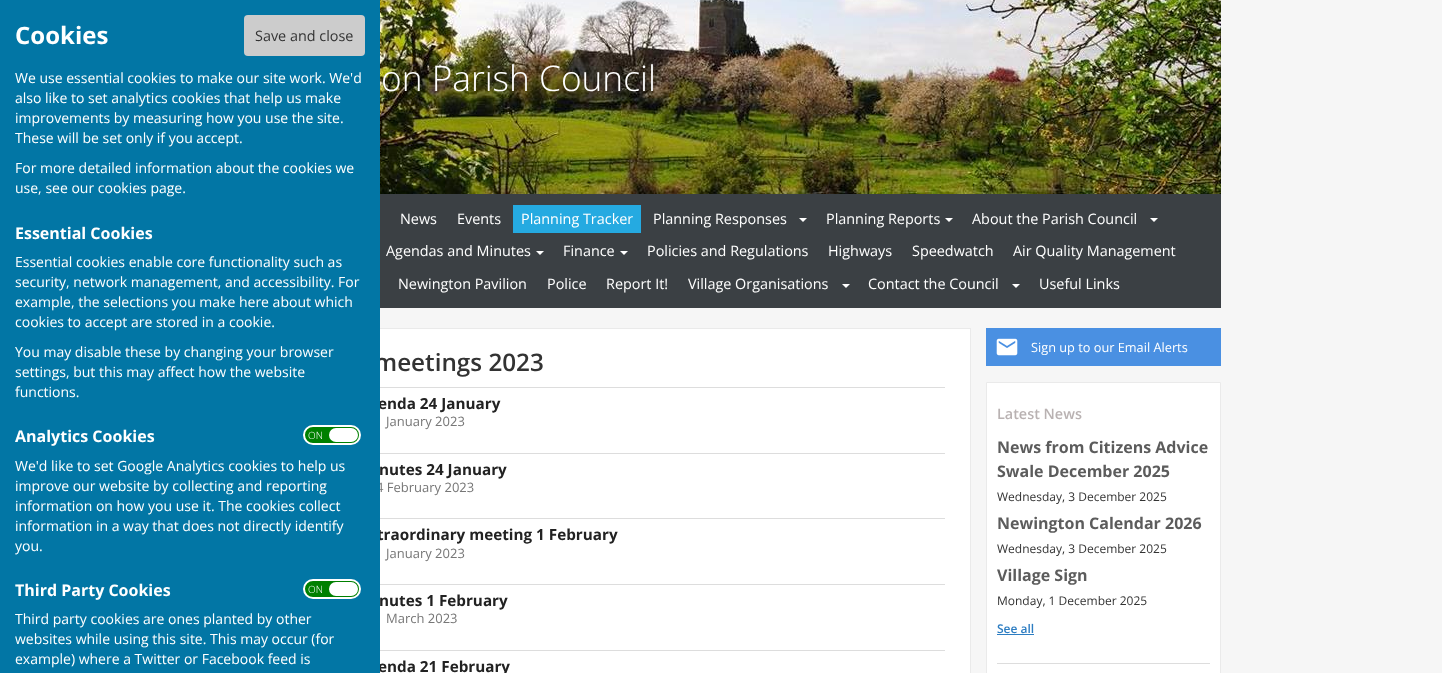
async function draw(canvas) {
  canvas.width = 1442;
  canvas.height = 673;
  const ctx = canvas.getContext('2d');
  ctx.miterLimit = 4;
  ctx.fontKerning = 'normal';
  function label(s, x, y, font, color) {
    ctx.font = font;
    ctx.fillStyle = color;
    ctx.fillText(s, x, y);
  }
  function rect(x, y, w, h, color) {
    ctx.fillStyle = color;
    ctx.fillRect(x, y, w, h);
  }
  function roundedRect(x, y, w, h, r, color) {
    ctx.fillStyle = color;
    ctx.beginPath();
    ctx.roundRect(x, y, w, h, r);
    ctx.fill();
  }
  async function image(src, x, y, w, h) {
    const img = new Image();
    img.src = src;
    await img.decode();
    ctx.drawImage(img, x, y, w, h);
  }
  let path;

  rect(0, 0, 1442, 673, '#f6f6f6');
  rect(380, 329, 590, 344, '#fff');
  ctx.strokeStyle = '#eaeaea';
  ctx.strokeRect(221.5, 328.5, 749, 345);
  label('meetings 2023', 374, 371, '600 24.25px Open Sans', '#333');
  label('enda 24 January', 378, 409, 'bold 15.25px Open Sans', '#222');
  label('4 February 2023', 376, 492, '13px Open Sans', '#777');
  label('traordinary meeting 1 February', 377, 540, 'bold 15.25px Open Sans', '#222');
  label('enda 21 February', 378, 672, 'bold 15.25px Open Sans', '#222');
  rect(0, 0, 380, 673, '#0276a5');
  label('Cookies', 15, 44, 'bold 24px Open Sans', '#fff');
  roundedRect(244, 15, 121, 41, 4, '#ccc');
  label('Save and close', 255, 41, '14.4px Open Sans', '#333');
  label('We use essential cookies to make our site work. We\'d', 15, 83, '14px Open Sans', '#fff');
  label('also like to set analytics cookies that help us make', 15, 103, '14px Open Sans', '#fff');
  label('improvements by measuring how you use the site.', 15, 123, '14px Open Sans', '#fff');
  label('These will be set only if you accept.', 15, 143, '14px Open Sans', '#fff');
  label('For more detailed information about the cookies we', 15, 173, '14px Open Sans', '#fff');
  label('use, see our cookies page.', 15, 193, '14px Open Sans', '#fff');
  label('Essential Cookies', 15, 239, 'bold 16px Open Sans', '#fff');
  label('Essential cookies enable core functionality such as', 15, 267, '14px Open Sans', '#fff');
  label('security, network management, and accessibility. For', 15, 287, '14px Open Sans', '#fff');
  label('example, the selections you make here about which', 15, 307, '14px Open Sans', '#fff');
  label('cookies to accept are stored in a cookie.', 15, 327, '14px Open Sans', '#fff');
  label('You may disable these by changing your browser', 15, 357, '14px Open Sans', '#fff');
  label('settings, but this may affect how the website', 15, 377, '14px Open Sans', '#fff');
  label('functions.', 15, 397, '14px Open Sans', '#fff');
  label('Analytics Cookies', 15, 442, 'bold 16px Open Sans', '#fff');
  ctx.fillStyle = '#008000';
  ctx.beginPath();
  ctx.roundRect(304, 426, 56, 18, 9);
  ctx.fill();
  ctx.strokeStyle = '#fff';
  ctx.lineWidth = 2;
  ctx.stroke();
  label('ON', 308, 439, '300 10px Open Sans', '#fff');
  roundedRect(329, 428, 29, 14, 7, '#fff');
  label('We\'d like to set Google Analytics cookies to help us', 15, 471, '14px Open Sans', '#fff');
  label('improve our website by collecting and reporting', 15, 491, '14px Open Sans', '#fff');
  label('information on how you use it. The cookies collect', 15, 511, '14px Open Sans', '#fff');
  label('information in a way that does not directly identify', 15, 531, '14px Open Sans', '#fff');
  label('you.', 15, 551, '14px Open Sans', '#fff');
  label('Third Party Cookies', 15, 596, 'bold 16px Open Sans', '#fff');
  ctx.fillStyle = '#008000';
  ctx.beginPath();
  ctx.roundRect(304, 580, 56, 18, 9);
  ctx.fill();
  ctx.stroke();
  label('ON', 308, 593, '300 10px Open Sans', '#fff');
  roundedRect(329, 582, 29, 14, 7, '#fff');
  label('Third party cookies are ones planted by other', 15, 624, '14px Open Sans', '#fff');
  label('websites while using this site. This may occur (for', 15, 644, '14px Open Sans', '#fff');
  label('example) where a Twitter or Facebook feed is', 15, 664, '14px Open Sans', '#fff');
  await image('assets/img1.png', 380, 0, 841, 194);
  label('on Parish Council', 381, 91, '300 35.25px Open Sans', '#fff');
  rect(380, 194, 841, 114, '#3b4044');
  label('News', 400, 224, '14.4px Open Sans', '#fff');
  label('Events', 457, 224, '14.4px Open Sans', '#fff');
  rect(513, 205, 128, 28, '#25aae1');
  label('Planning Tracker', 521, 224, '14.4px Open Sans', '#fff');
  label('Planning Responses', 653, 224, '14.4px Open Sans', '#fff');
  path = new Path2D('M799 218H807L803 222Z');
  ctx.fill(path);
  label('Planning Reports', 826, 224, '14.4px Open Sans', '#fff');
  path = new Path2D('M945 218H953L949 222Z');
  ctx.fill(path);
  label('About the Parish Council', 972, 224, '14.4px Open Sans', '#fff');
  path = new Path2D('M1150 218H1158L1154 222Z');
  ctx.fill(path);
  label('Agendas and Minutes', 386, 256, '14.4px Open Sans', '#fff');
  path = new Path2D('M536 251H544L540 255Z');
  ctx.fill(path);
  label('Finance', 563, 256, '14.4px Open Sans', '#fff');
  path = new Path2D('M620 251H628L624 255Z');
  ctx.fill(path);
  label('Policies and Regulations', 647, 256, '14.4px Open Sans', '#fff');
  label('Highways', 828, 256, '14.4px Open Sans', '#fff');
  label('Speedwatch', 912, 256, '14.4px Open Sans', '#fff');
  label('Air Quality Management', 1013, 256, '14.4px Open Sans', '#fff');
  label('Newington Pavilion', 398, 289, '14.4px Open Sans', '#fff');
  label('Police', 547, 289, '14.4px Open Sans', '#fff');
  label('Report It!', 606, 289, '14.4px Open Sans', '#fff');
  label('Village Organisations', 688, 289, '14.4px Open Sans', '#fff');
  path = new Path2D('M842 284H850L846 288Z');
  ctx.fill(path);
  label('Contact the Council', 868, 289, '14.4px Open Sans', '#fff');
  path = new Path2D('M1012 284H1020L1016 288Z');
  ctx.fill(path);
  label('Useful Links', 1039, 289, '14.4px Open Sans', '#fff');
  rect(380, 387, 565, 1, '#ddd');
  label('January 2023', 386, 426, '13px Open Sans', '#777');
  rect(380, 453, 565, 1, '#ddd');
  label('nutes 24 January', 379, 475, 'bold 15.25px Open Sans', '#222');
  rect(380, 518, 565, 1, '#ddd');
  label('January 2023', 386, 558, '13px Open Sans', '#777');
  rect(380, 584, 565, 1, '#ddd');
  label('nutes 1 February', 379, 606, 'bold 15.25px Open Sans', '#222');
  label('March 2023', 386, 623, '13px Open Sans', '#777');
  rect(380, 650, 565, 1, '#ddd');
  rect(986, 328, 235, 38, '#4a90e2');
  await image('assets/img2.png', 996, 338, 22, 18);
  label('Sign up to our Email Alerts', 1031, 352, '12.75px Open Sans', '#fff');
  ctx.beginPath();
  ctx.rect(986.5, 382.5, 234, 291);
  ctx.fill();
  ctx.strokeStyle = '#eaeaea';
  ctx.lineWidth = 1;
  ctx.stroke();
  label('Latest News', 997, 419, '600 14.4px Open Sans', '#b9b2b2');
  label('News from Citizens Advice', 997, 453, 'bold 16px Open Sans', '#5c5c5c');
  label('Swale December 2025', 997, 477, 'bold 16px Open Sans', '#5c5c5c');
  label('Wednesday, 3 December 2025', 997, 501, '12px Open Sans', '#333');
  label('Newington Calendar 2026', 997, 529, 'bold 16px Open Sans', '#5c5c5c');
  label('Wednesday, 3 December 2025', 997, 553, '12px Open Sans', '#333');
  label('Village Sign', 997, 581, 'bold 16px Open Sans', '#5c5c5c');
  label('Monday, 1 December 2025', 997, 605, '12px Open Sans', '#333');
  label('See all', 997, 633, '600 12px Open Sans', '#2d7dc2');
  rect(997, 634, 37, 1, '#2d7dc2');
  rect(997, 663, 213, 1, '#ddd');
}

draw(document.querySelector('canvas'));
